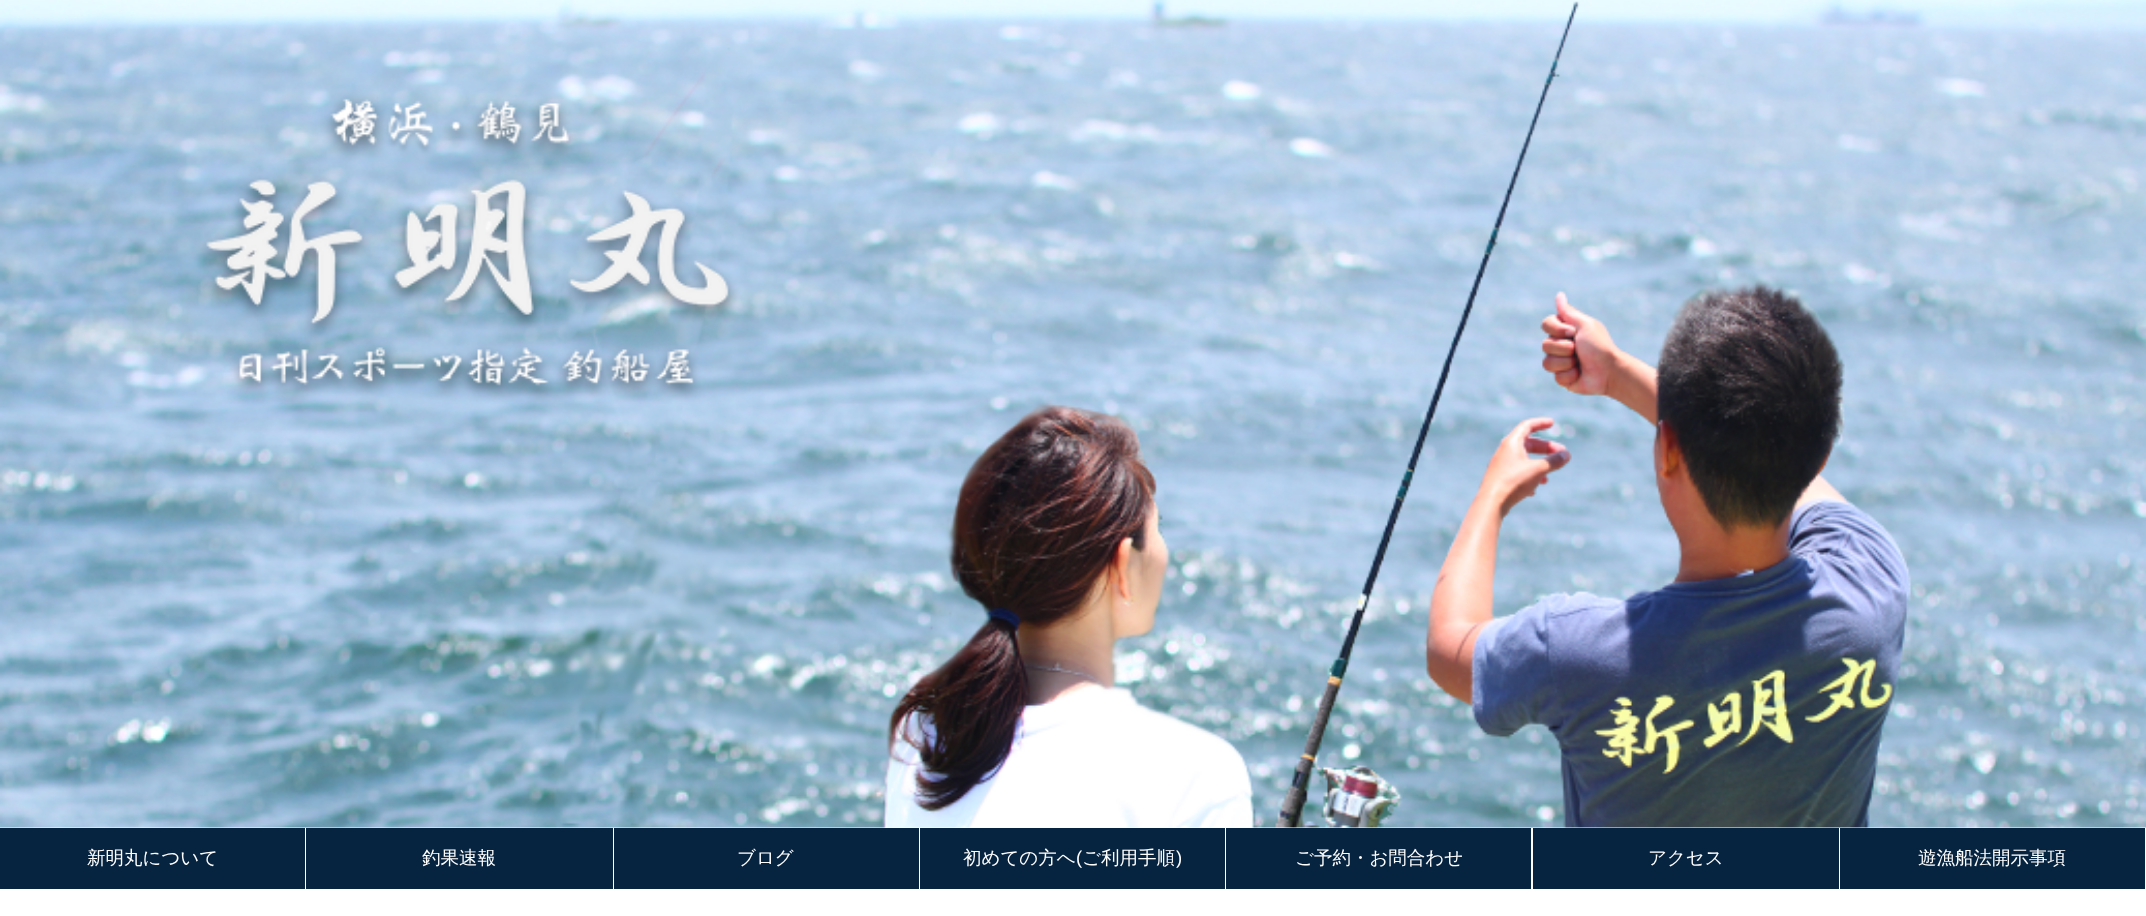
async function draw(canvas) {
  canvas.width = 2146;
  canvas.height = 916;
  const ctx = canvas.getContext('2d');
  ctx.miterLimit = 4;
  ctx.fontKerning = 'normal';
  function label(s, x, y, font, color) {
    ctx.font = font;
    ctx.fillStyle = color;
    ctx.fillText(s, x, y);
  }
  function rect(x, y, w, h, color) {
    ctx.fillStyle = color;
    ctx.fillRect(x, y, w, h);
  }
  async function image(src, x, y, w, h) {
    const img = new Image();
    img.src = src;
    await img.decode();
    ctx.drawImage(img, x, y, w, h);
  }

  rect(0, 0, 2146, 916, '#fff');
  await image('assets/img1.png', 0, 0, 2146, 828);
  rect(0, 828, 305, 61, '#06233f');
  label('新明丸について', 87, 864, '500 18.5px WenQuanYi Zen Hei', '#fff');
  rect(306, 828, 307, 61, '#06233f');
  label('釣果速報', 422, 864, '500 18.5px WenQuanYi Zen Hei', '#fff');
  rect(614, 828, 305, 61, '#06233f');
  label('ブログ', 737, 864, '500 18.5px WenQuanYi Zen Hei', '#fff');
  rect(920, 828, 305, 61, '#06233f');
  label('初めての方へ', 963, 864, '500 18.5px WenQuanYi Zen Hei', '#fff');
  label('(', 1076, 864, '18.5px Liberation Sans', '#fff');
  label('ご利用手順', 1082, 864, '500 18.5px WenQuanYi Zen Hei', '#fff');
  label(')', 1176, 864, '18.5px Liberation Sans', '#fff');
  rect(1226, 828, 305, 61, '#06233f');
  label('ご予約・お問合わせ', 1295, 864, '500 18.5px WenQuanYi Zen Hei', '#fff');
  rect(1533, 828, 306, 61, '#06233f');
  label('アクセス', 1648, 864, '500 18.5px WenQuanYi Zen Hei', '#fff');
  rect(1840, 828, 305, 61, '#06233f');
  label('遊漁船法開示事項', 1918, 864, '500 18.5px WenQuanYi Zen Hei', '#fff');
}

draw(document.querySelector('canvas'));
